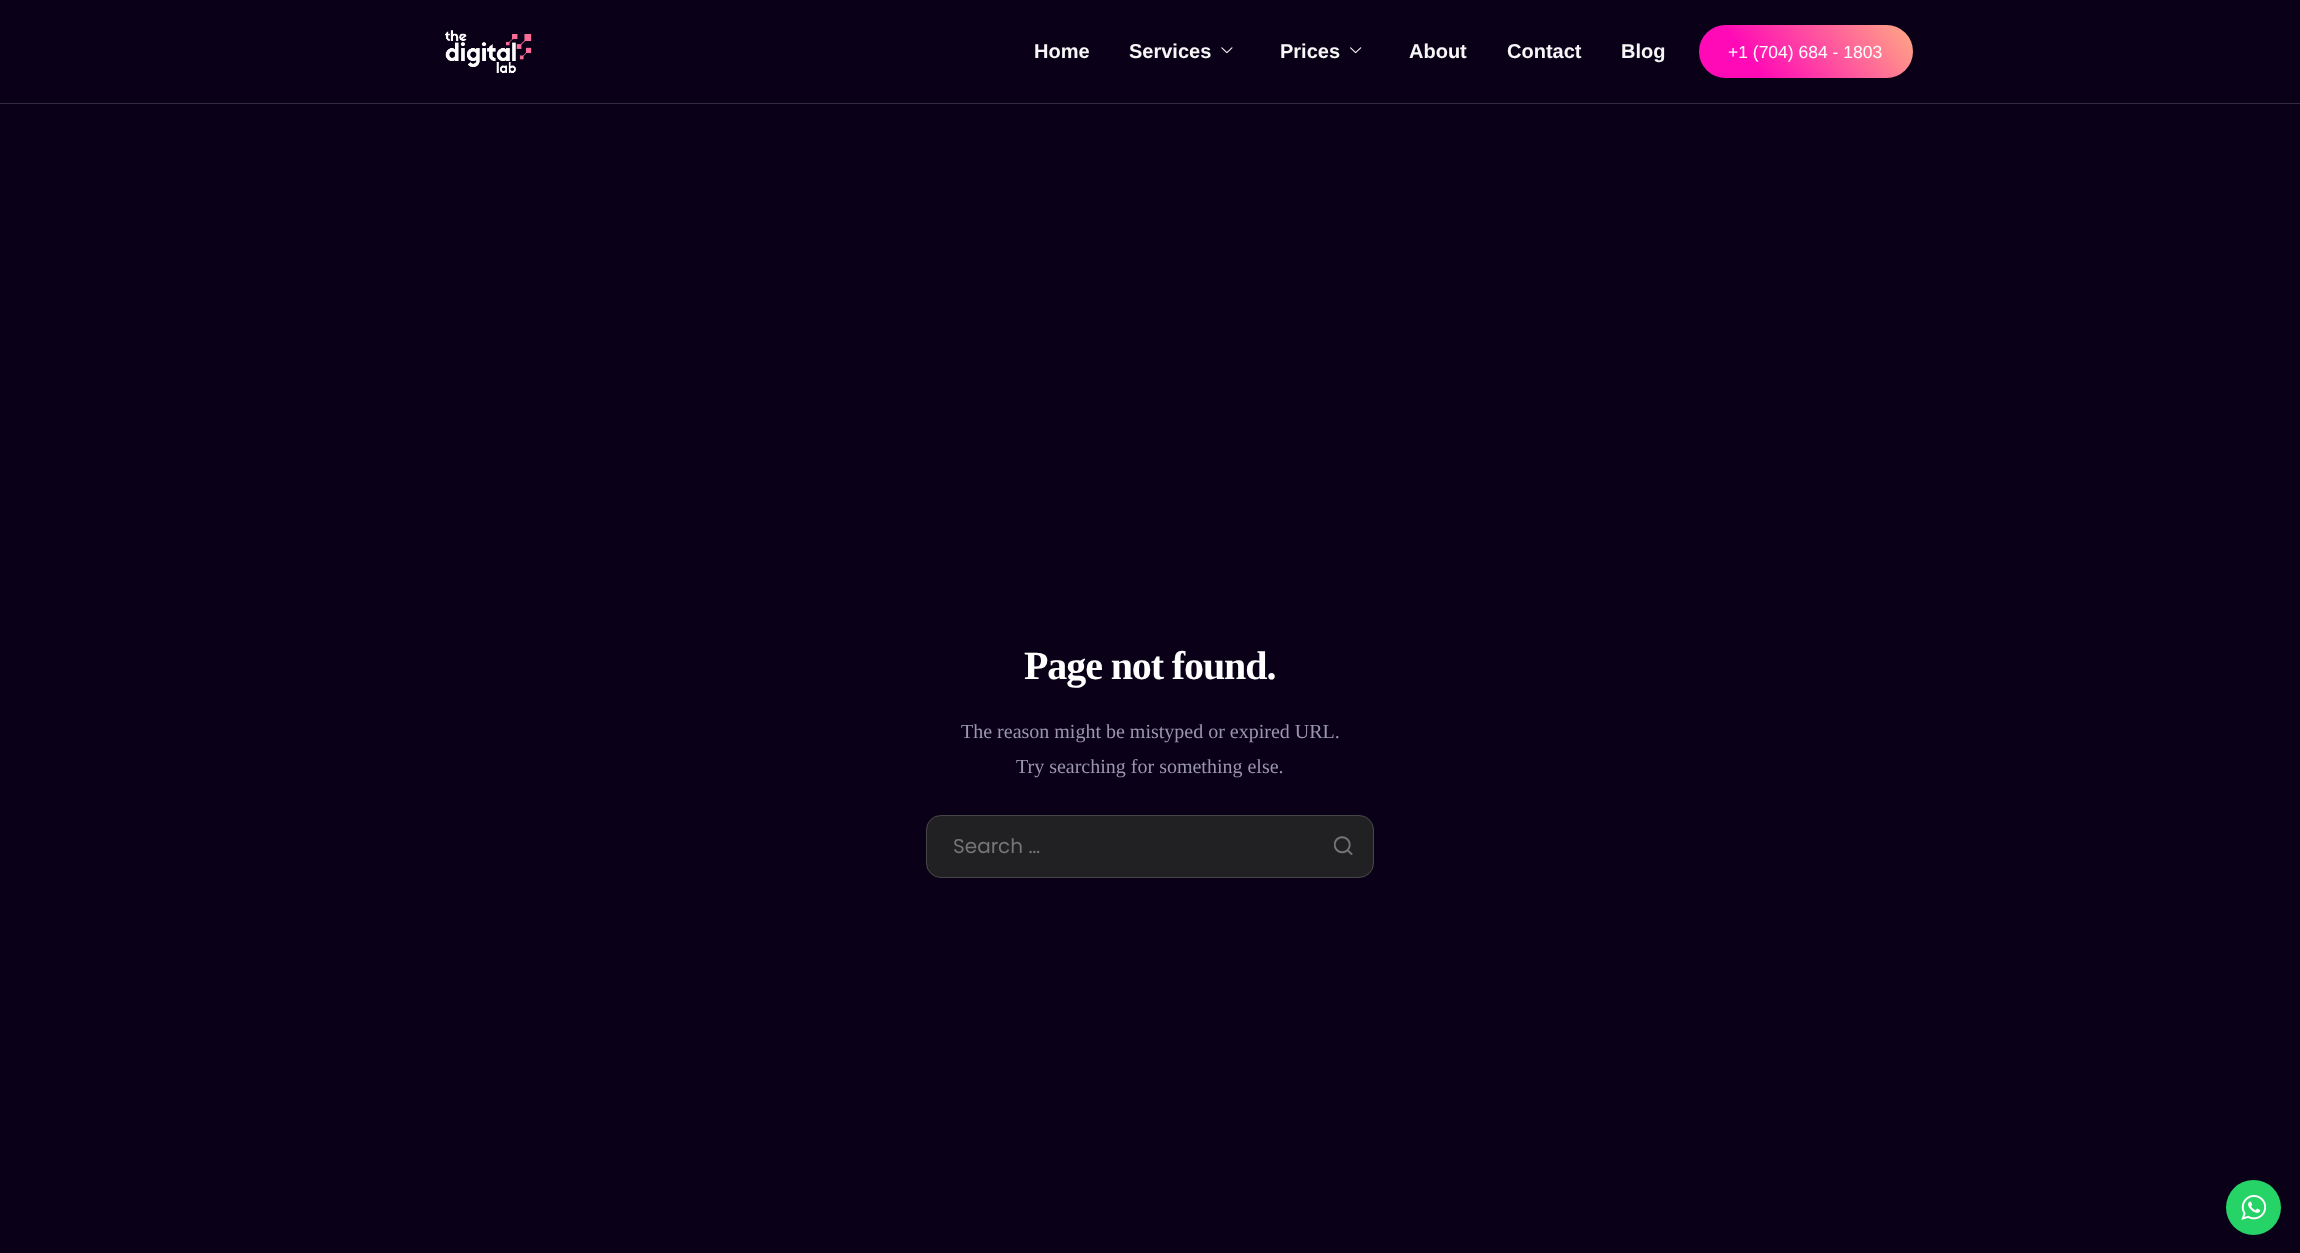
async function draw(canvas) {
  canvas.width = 2300;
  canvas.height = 1253;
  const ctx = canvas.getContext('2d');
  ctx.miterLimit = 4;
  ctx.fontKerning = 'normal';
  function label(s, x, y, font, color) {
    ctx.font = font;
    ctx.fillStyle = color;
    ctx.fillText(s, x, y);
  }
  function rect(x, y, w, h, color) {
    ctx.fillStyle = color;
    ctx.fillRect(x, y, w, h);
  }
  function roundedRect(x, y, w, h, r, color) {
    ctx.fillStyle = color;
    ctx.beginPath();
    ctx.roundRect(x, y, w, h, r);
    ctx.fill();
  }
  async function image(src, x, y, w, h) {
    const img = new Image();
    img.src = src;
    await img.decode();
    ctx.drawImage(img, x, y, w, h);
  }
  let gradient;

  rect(0, 0, 2300, 1253, '#0a0118');
  rect(0, 103, 2300, 1, '#342c3f');
  await image('assets/img1.png', 445, 30, 87, 43);
  label('Home', 1034, 58, 'bold 20px Liberation Sans', '#f7f7f7');
  label('Services', 1129, 58, 'bold 20px Liberation Sans', '#f7f7f7');
  await image('assets/img2.png', 1221, 47, 12, 7);
  label('Prices', 1280, 58, 'bold 20px Liberation Sans', '#f7f7f7');
  await image('assets/img3.png', 1350, 47, 12, 7);
  label('About', 1409, 58, 'bold 20px Liberation Sans', '#f7f7f7');
  label('Contact', 1507, 58, 'bold 20px Liberation Sans', '#f7f7f7');
  label('Blog', 1621, 58, 'bold 20px Liberation Sans', '#f7f7f7');
  gradient = ctx.createLinearGradient(1727, 113, 1885, -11);
  gradient.addColorStop(0.25, '#ff0ab6');
  gradient.addColorStop(1, '#ffaa83');
  ctx.fillStyle = gradient;
  ctx.beginPath();
  ctx.roundRect(1699, 25, 214, 53, 26.5);
  ctx.fill();
  label('+1 (704) 684 - 1803', 1728, 58, '17.5px Liberation Sans', '#fff');
  ctx.letterSpacing = '-1.1px';
  label('Page not found.', 1024, 679, 'bold 40px Liberation Serif', '#fff');
  ctx.letterSpacing = '0px';
  label('The reason might be mistyped or expired URL.', 961, 738, '20px Liberation Serif', '#9b96b0');
  label('Try searching for something else.', 1016, 773, '20px Liberation Serif', '#9b96b0');
  roundedRect(926, 815, 448, 63, 15, '#212023');
  ctx.beginPath();
  ctx.roundRect(926.5, 815.5, 447, 62, 14.5);
  ctx.strokeStyle = '#ffffff2b';
  ctx.stroke();
  label('Search …', 953, 853, '20px Poppins', '#757575');
  await image('assets/img4.png', 1334, 836, 19, 19);
  ctx.fillStyle = '#25d366';
  ctx.beginPath();
  ctx.arc(2253.5, 1207.5, 27.5, 0, 2 * Math.PI);
  ctx.fill();
  await image('assets/img5.png', 2241, 1195, 25, 25);
}

draw(document.querySelector('canvas'));
